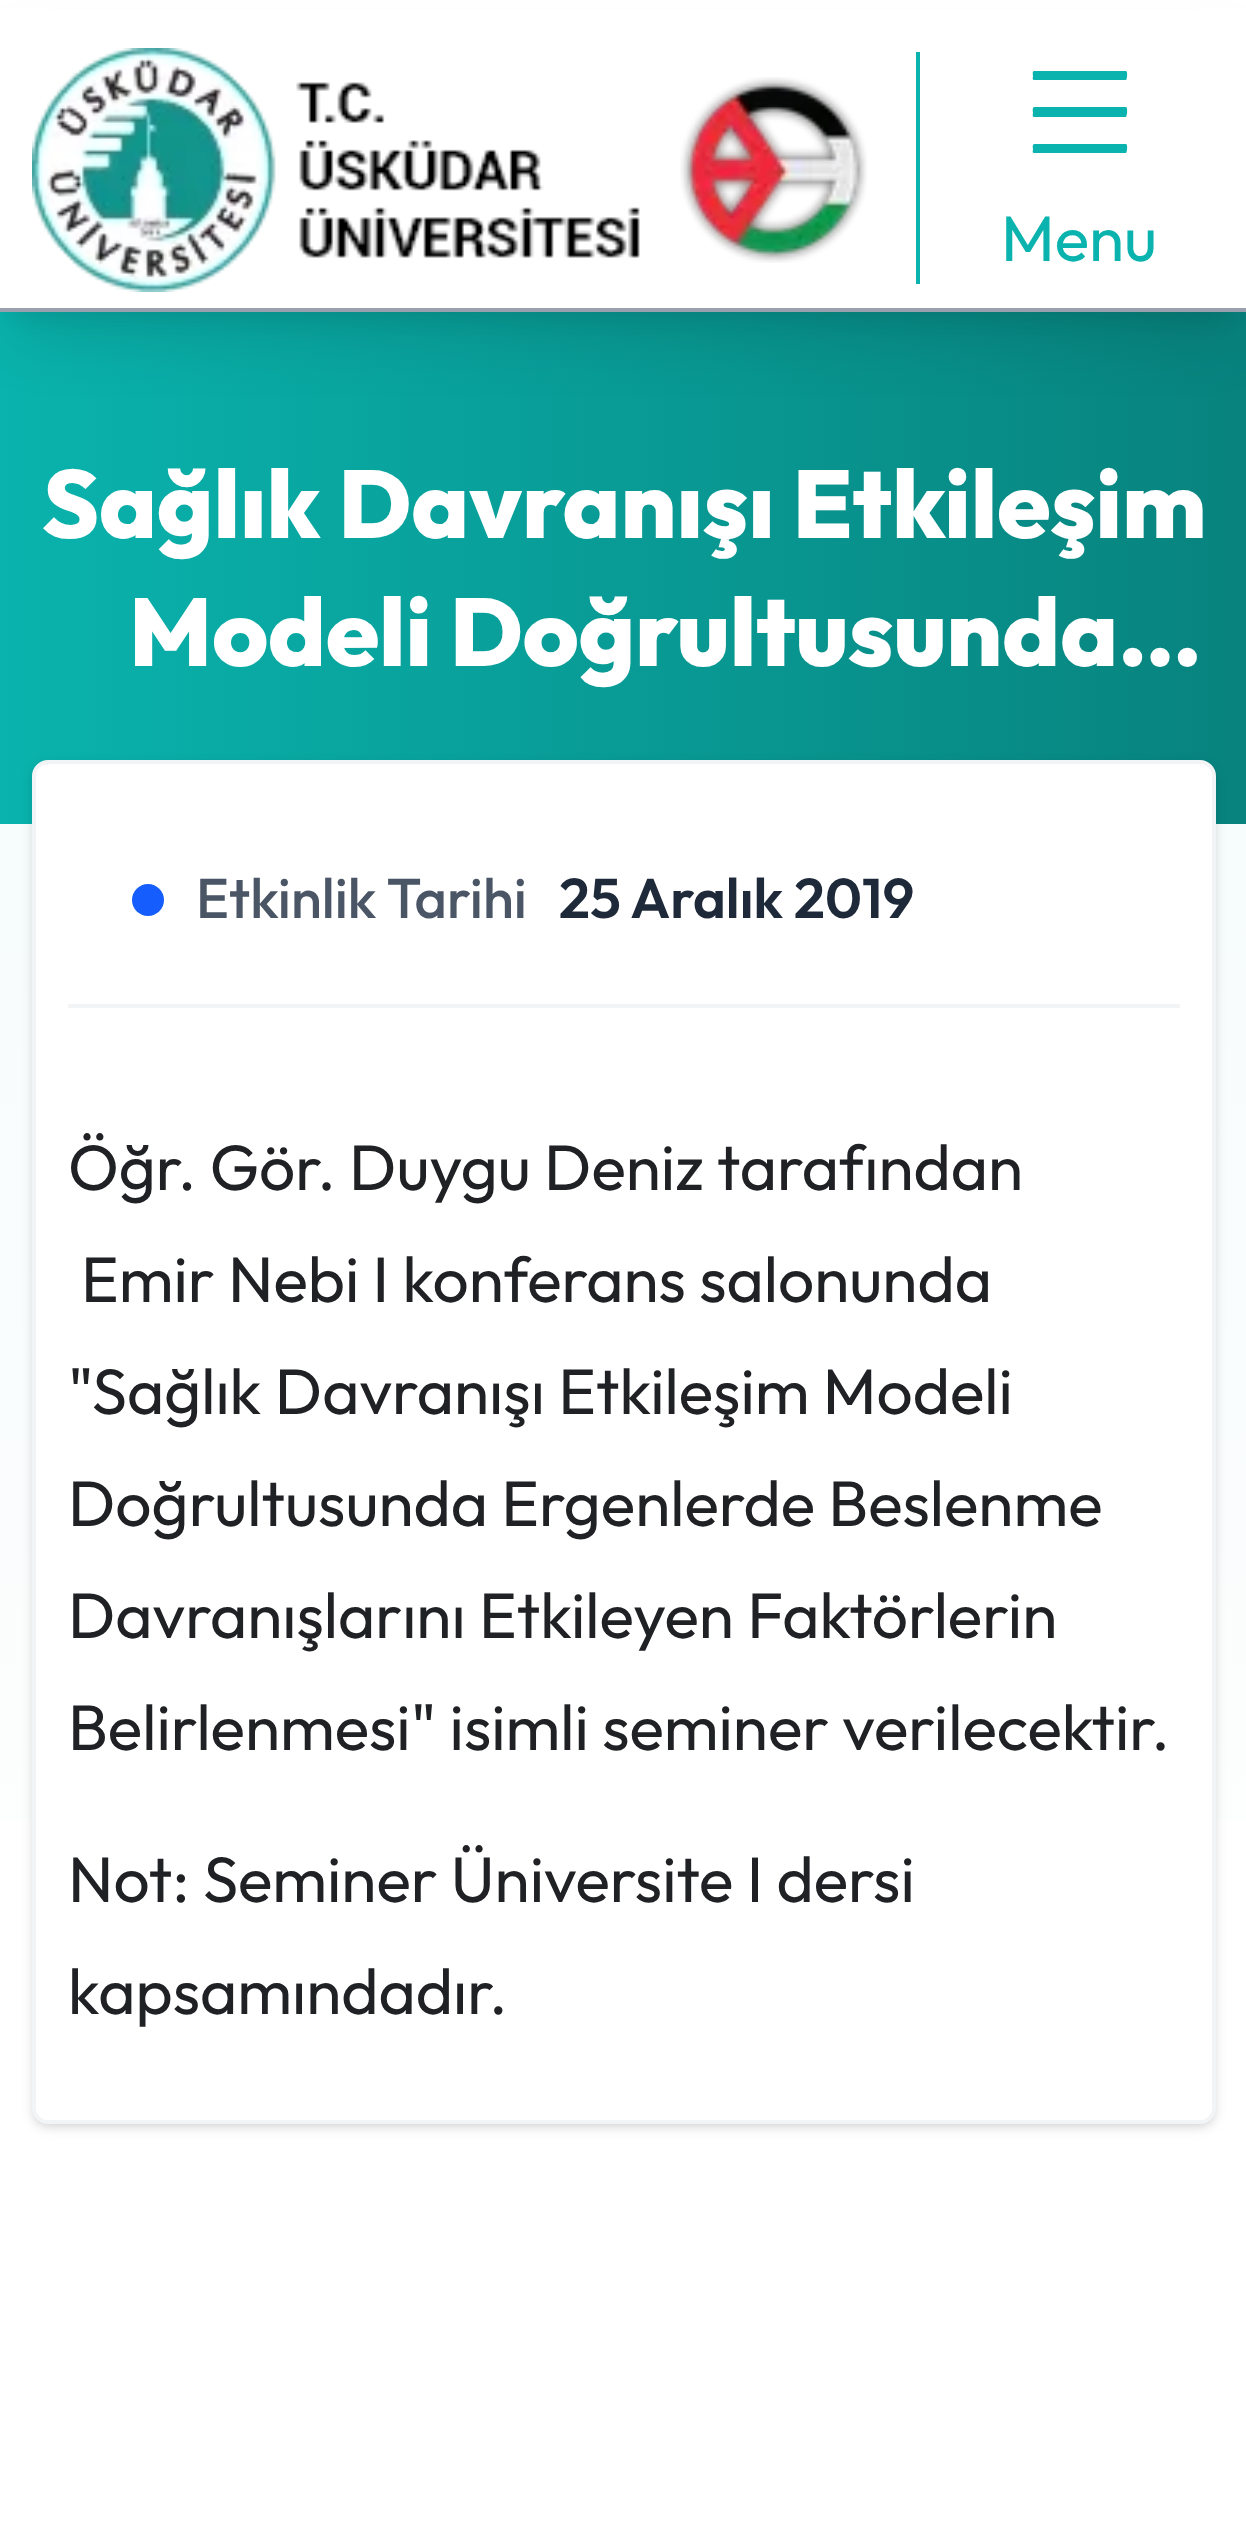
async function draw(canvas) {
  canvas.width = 1246;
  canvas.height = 2528;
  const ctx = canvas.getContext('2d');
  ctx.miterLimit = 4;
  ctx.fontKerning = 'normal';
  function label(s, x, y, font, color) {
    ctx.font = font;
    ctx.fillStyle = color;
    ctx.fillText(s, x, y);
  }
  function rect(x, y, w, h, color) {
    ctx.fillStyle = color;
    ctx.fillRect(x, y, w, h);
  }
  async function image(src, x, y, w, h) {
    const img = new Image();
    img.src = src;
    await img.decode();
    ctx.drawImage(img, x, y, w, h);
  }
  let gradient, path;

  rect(0, 0, 1246, 2528, '#fff');
  gradient = ctx.createLinearGradient(624, 0, 624, 2252);
  gradient.addColorStop(0, '#f2fafa');
  gradient.addColorStop(1, '#fff');
  ctx.fillStyle = gradient;
  ctx.fillRect(0, 824, 1246, 995);
  gradient = ctx.createLinearGradient(0, 568, 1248, 568);
  gradient.addColorStop(0, '#0ab3ad');
  gradient.addColorStop(1, '#08837e');
  ctx.fillStyle = gradient;
  ctx.fillRect(0, 312, 1246, 512);
  ctx.fillStyle = '#0000001a';
  ctx.filter = 'blur(12px)';
  ctx.beginPath();
  ctx.rect(16, 32, 1216, 280);
  ctx.fill();
  ctx.filter = 'none';
  ctx.filter = 'blur(30px)';
  ctx.beginPath();
  ctx.rect(12, 52, 1224, 288);
  ctx.fill();
  ctx.filter = 'none';
  rect(0, 9, 1246, 299, '#fff');
  rect(0, 308, 1246, 4, '#99a1af');
  await image('assets/img1.png', 32, 48, 608, 244);
  await image('assets/img2.png', 680, 77, 187, 186);
  rect(916, 52, 4, 232, '#0ab3ad');
  path = new Path2D('M1126 71H1034C1032 71 1033 75 1033 76C1033 77 1032 80 1034 80H1126C1127 80 1128 71 1126 71ZM1126 144H1034C1032 145 1033 148 1033 149C1033 150 1032 153 1034 153H1126C1127 153 1128 144 1126 144ZM1126 107H1034C1032 108 1033 112 1033 113C1033 113 1032 117 1034 117H1126C1127 116 1128 107 1126 107Z');
  ctx.fill(path);
  label('Menu', 1001, 261, '64px Outfit', '#0ab3ad');
  label('Sağlık Davranışı Etkileşim', 42, 538, '800 96px Outfit', '#fff');
  label('Modeli Doğrultusunda…', 129, 666, '800 96px Outfit', '#fff');
  ctx.fillStyle = '#0000001a';
  ctx.filter = 'blur(4px)';
  ctx.beginPath();
  ctx.roundRect(36, 768, 1176, 1356, 12);
  ctx.fill();
  ctx.filter = 'none';
  ctx.filter = 'blur(6px)';
  ctx.beginPath();
  ctx.roundRect(32, 764, 1184, 1364, 16);
  ctx.fill();
  ctx.filter = 'none';
  ctx.fillStyle = '#fff';
  ctx.beginPath();
  ctx.roundRect(34, 762, 1180, 1360, 14);
  ctx.fill();
  ctx.strokeStyle = '#f3f4f6';
  ctx.lineWidth = 4;
  ctx.stroke();
  rect(68, 1004, 1112, 4, '#f3f4f6');
  ctx.fillStyle = '#155dfc';
  ctx.beginPath();
  ctx.arc(148, 900, 16, 0, 2 * Math.PI);
  ctx.fill();
  label('Etkinlik Tarihi', 196, 918, '500 56px Outfit', '#4a5565');
  label('25 Aralık 2019', 559, 918, '600 56px Outfit', '#1e2939');
  label('Öğr. Gör. Duygu Deniz tarafından', 68, 1190, '64px Outfit', '#202124');
  label('Emir Nebi I konferans salonunda', 81, 1302, '64px Outfit', '#202124');
  label('"Sağlık Davranışı Etkileşim Modeli', 68, 1414, '64px Outfit', '#202124');
  label('Doğrultusunda Ergenlerde Beslenme', 68, 1526, '64px Outfit', '#202124');
  label('Davranışlarını Etkileyen Faktörlerin', 68, 1638, '64px Outfit', '#202124');
  label('Belirlenmesi" isimli seminer verilecektir.', 68, 1750, '64px Outfit', '#202124');
  label('Not: Seminer Üniversite I dersi', 68, 1902, '64px Outfit', '#202124');
  label('kapsamındadır.', 68, 2014, '64px Outfit', '#202124');
}

draw(document.querySelector('canvas'));
